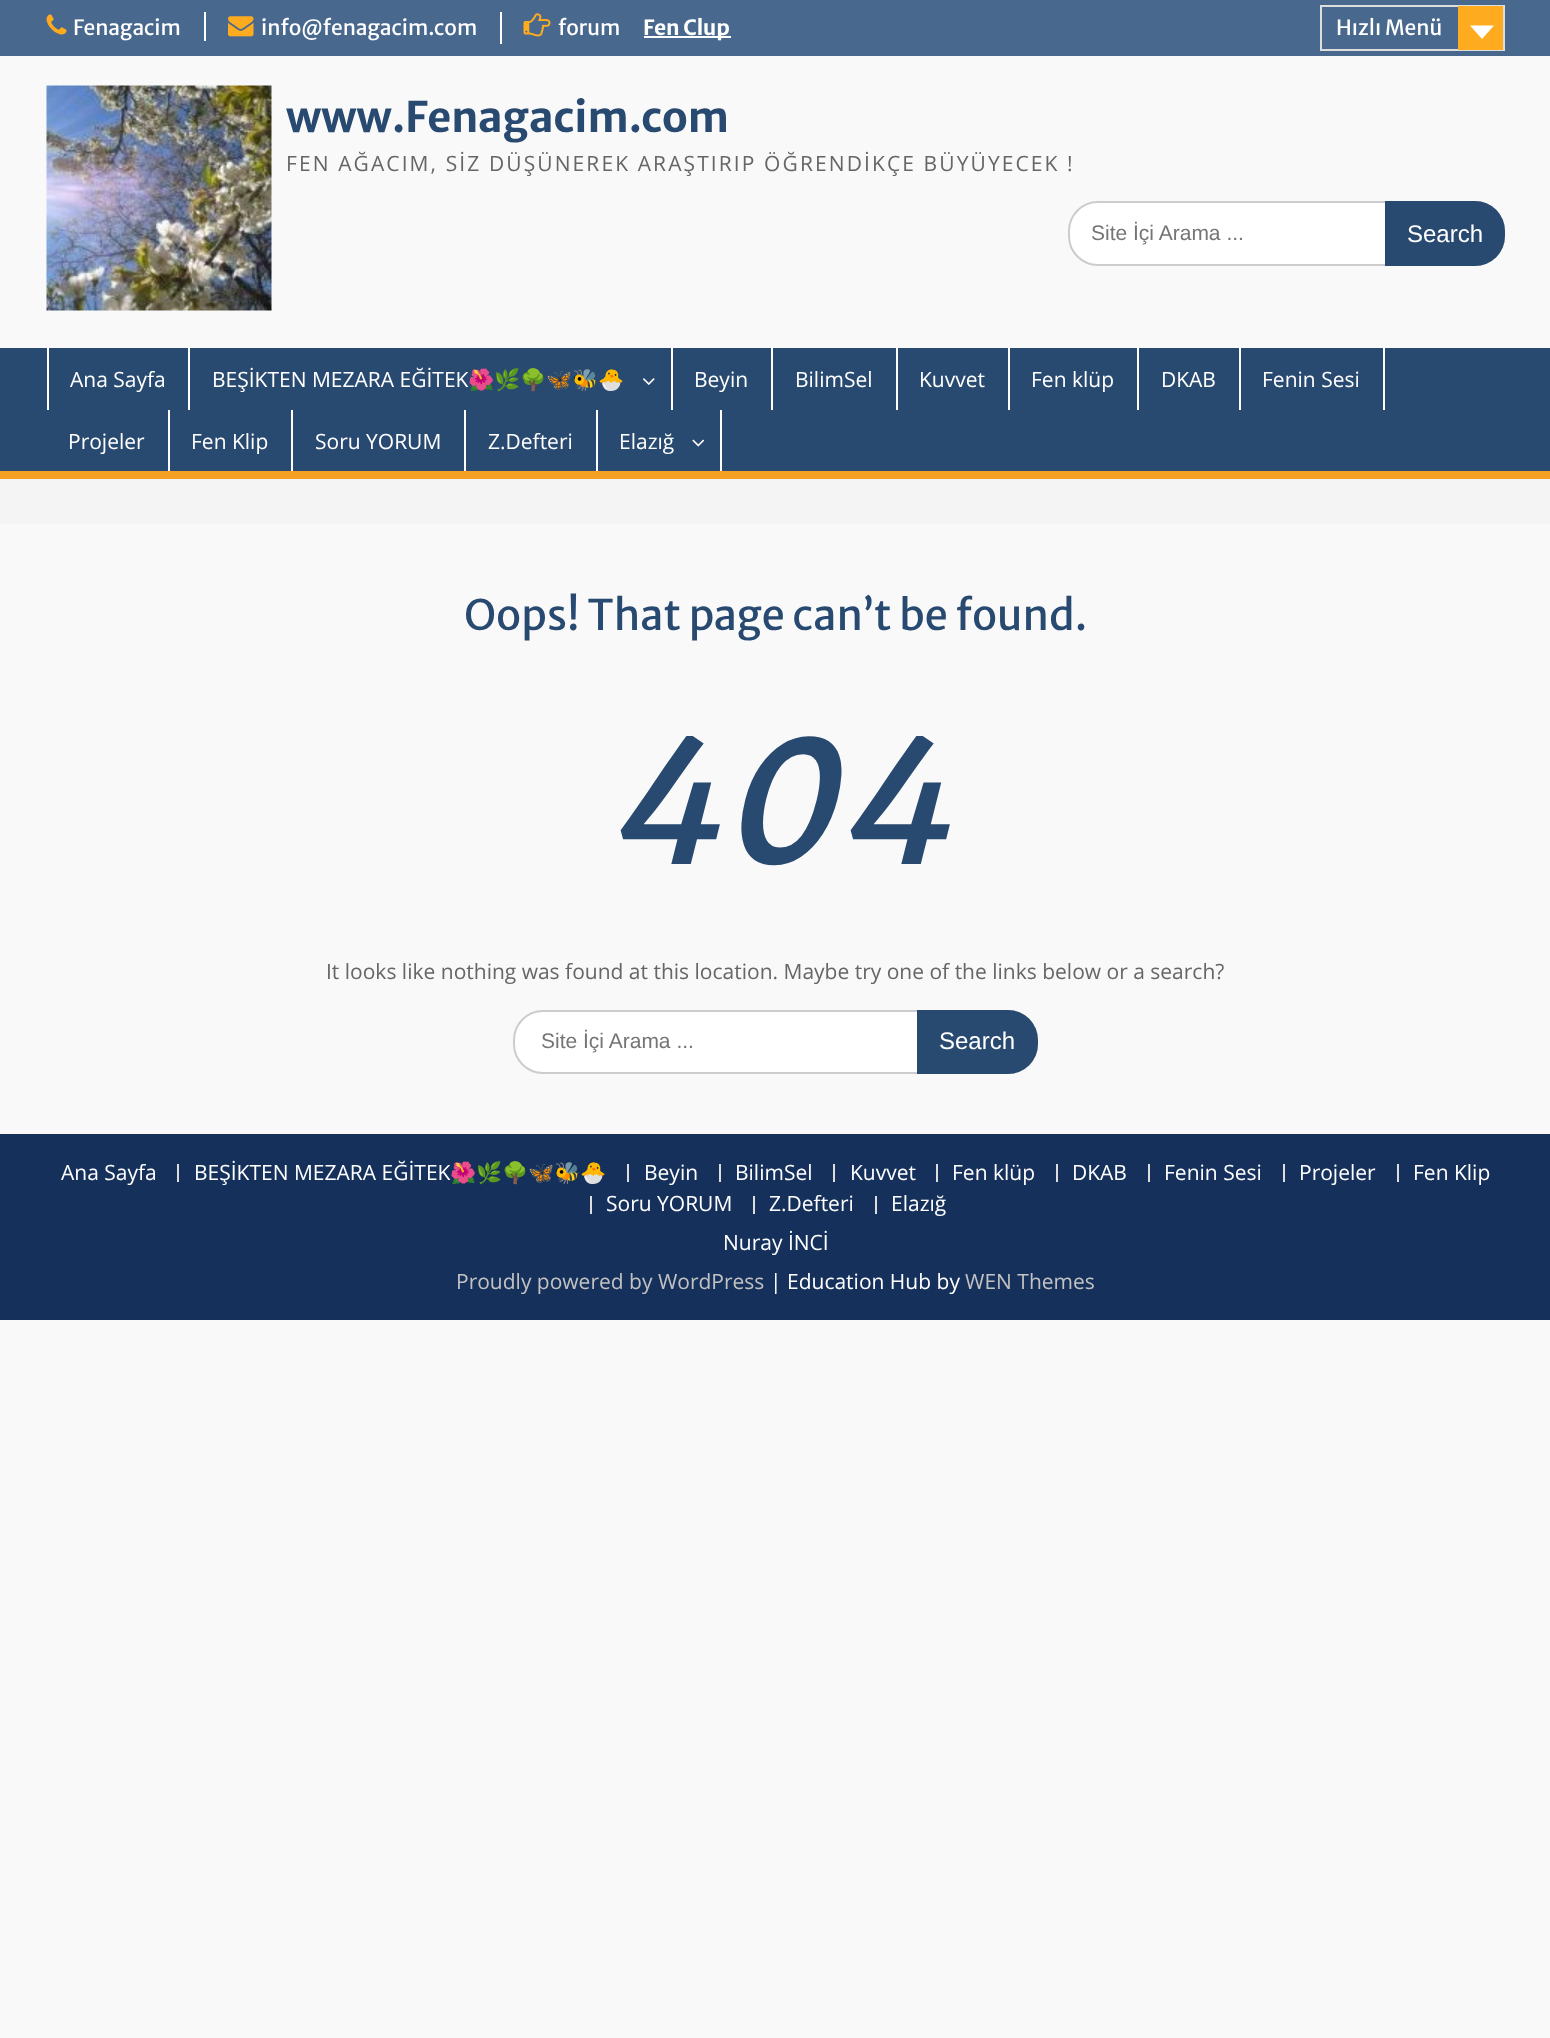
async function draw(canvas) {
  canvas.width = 1550;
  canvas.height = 2038;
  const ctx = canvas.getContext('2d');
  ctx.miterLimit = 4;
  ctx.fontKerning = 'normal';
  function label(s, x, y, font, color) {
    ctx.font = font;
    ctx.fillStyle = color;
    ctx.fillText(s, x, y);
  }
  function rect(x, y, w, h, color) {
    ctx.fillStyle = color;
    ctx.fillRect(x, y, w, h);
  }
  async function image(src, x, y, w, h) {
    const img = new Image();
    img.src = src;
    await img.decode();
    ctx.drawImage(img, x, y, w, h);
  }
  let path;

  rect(0, 0, 1550, 2038, '#f9f9f9');
  rect(0, 0, 1550, 56, '#49688e');
  await image('assets/img1.png', 46, 14, 21, 21);
  label('Fenagacim', 73, 35, '21px Merriweather Sans', '#fff');
  rect(204, 12, 2, 29, '#fff');
  await image('assets/img2.png', 228, 16, 26, 21);
  label('info@fenagacim.com', 261, 35, '21px Merriweather Sans', '#fff');
  rect(500, 12, 2, 32, '#fff');
  await image('assets/img3.png', 523, 13, 28, 24);
  label('forum', 558, 35, '21px Merriweather Sans', '#fff');
  rect(644, 36, 87, 2, '#fff');
  label('Fen Clup', 643, 35, 'bold 21px Merriweather Sans', '#fff');
  ctx.strokeStyle = '#ddd';
  ctx.lineWidth = 2;
  ctx.strokeRect(1321, 6, 183, 44);
  label('Hızlı Menü', 1336, 35, '21px Merriweather Sans', '#fff');
  rect(1458, 6, 45, 44, '#ffab1f');
  ctx.fillStyle = '#fff';
  path = new Path2D('M1470 25.5H1494L1482 39Z');
  ctx.fill(path);
  await image('assets/img4.png', 46, 85, 226, 226);
  label('www.Fenagacim.com', 286, 132, 'bold 42px Merriweather Sans', '#294a70');
  ctx.letterSpacing = '2.1px';
  label('FEN AĞACIM, SİZ DÜŞÜNEREK ARAŞTIRIP ÖĞRENDİKÇE BÜYÜYECEK !', 286, 171, '21px Open Sans', '#666');
  ctx.fillStyle = '#fff';
  ctx.beginPath();
  ctx.roundRect(1069, 202, 435, 63, 29);
  ctx.fill();
  ctx.strokeStyle = '#ccc';
  ctx.stroke();
  ctx.letterSpacing = '0px';
  label('Site İçi Arama ...', 1091, 240, '21px Liberation Sans', '#757575');
  ctx.fillStyle = '#294a70';
  ctx.beginPath();
  ctx.roundRect(1385, 201, 120, 65, [0, 30, 30, 0]);
  ctx.fill();
  label('Search', 1407, 242, '24px Liberation Sans', '#fff');
  rect(0, 348, 1550, 123, '#294a70');
  rect(0, 471, 1550, 8, '#f4a024');
  rect(188, 348, 2, 62, '#fff');
  rect(47, 348, 2, 62, '#fff');
  label('Ana Sayfa', 70, 387, '21px Open Sans', '#fff');
  rect(671, 348, 2, 62, '#fff');
  label('BEŞİKTEN MEZARA EĞİTEK', 212, 387, '21px Open Sans', '#fff');
  label('🌺🌿🌳🦋🐝🐣', 468, 387, '21px Noto Color Emoji', '#fff');
  await image('assets/img5.png', 643, 378, 12, 7);
  rect(771, 348, 2, 62, '#fff');
  label('Beyin', 694, 387, '21px Open Sans', '#fff');
  rect(896, 348, 2, 62, '#fff');
  label('BilimSel', 795, 387, '21px Open Sans', '#fff');
  rect(1008, 348, 2, 62, '#fff');
  label('Kuvvet', 919, 387, '21px Open Sans', '#fff');
  rect(1137, 348, 2, 62, '#fff');
  label('Fen klüp', 1031, 387, '21px Open Sans', '#fff');
  rect(1239, 348, 2, 62, '#fff');
  label('DKAB', 1161, 387, '21px Open Sans', '#fff');
  rect(1383, 348, 2, 62, '#fff');
  label('Fenin Sesi', 1262, 387, '21px Open Sans', '#fff');
  rect(168, 410, 2, 61, '#fff');
  label('Projeler', 68, 449, '21px Open Sans', '#fff');
  rect(291, 410, 2, 61, '#fff');
  label('Fen Klip', 191, 449, '21px Open Sans', '#fff');
  rect(464, 410, 2, 61, '#fff');
  label('Soru YORUM', 315, 449, '21px Open Sans', '#fff');
  rect(596, 410, 2, 61, '#fff');
  label('Z.Defteri', 488, 449, '21px Open Sans', '#fff');
  rect(720, 410, 2, 61, '#fff');
  label('Elazığ', 619, 449, '21px Open Sans', '#fff');
  await image('assets/img6.png', 692, 439, 13, 8);
  rect(0, 479, 1550, 45, '#f4f4f4');
  label('Oops! That page can’t be found.', 464, 630, '42px Merriweather Sans', '#294a70');
  label('404', 603, 864, 'italic 169.5px Merriweather Sans', '#294a70');
  label('It looks like nothing was found at this location. Maybe try one of the links below or a search?', 326, 979, '21px Open Sans', '#666');
  ctx.fillStyle = '#fff';
  ctx.beginPath();
  ctx.roundRect(514, 1011, 523, 62, 29);
  ctx.fill();
  ctx.stroke();
  label('Site İçi Arama ...', 541, 1048, '21px Liberation Sans', '#757575');
  ctx.fillStyle = '#294a70';
  ctx.beginPath();
  ctx.roundRect(917, 1010, 121, 64, [0, 30, 30, 0]);
  ctx.fill();
  label('Search', 939, 1049, '24px Liberation Sans', '#fff');
  rect(0, 1134, 1550, 186, '#15305b');
  label('Ana Sayfa', 61, 1180, '21px Open Sans', '#fff');
  rect(177, 1164, 2, 18, '#ddd');
  label('BEŞİKTEN MEZARA EĞİTEK', 194, 1180, '21px Open Sans', '#fff');
  label('🌺🌿🌳🦋🐝🐣', 450, 1180, '21px Noto Color Emoji', '#fff');
  rect(627, 1164, 2, 18, '#ddd');
  label('Beyin', 644, 1180, '21px Open Sans', '#fff');
  rect(719, 1164, 2, 18, '#ddd');
  label('BilimSel', 735, 1180, '21px Open Sans', '#fff');
  rect(833, 1164, 2, 18, '#ddd');
  label('Kuvvet', 850, 1180, '21px Open Sans', '#fff');
  rect(936, 1164, 2, 18, '#ddd');
  label('Fen klüp', 952, 1180, '21px Open Sans', '#fff');
  rect(1056, 1164, 2, 18, '#ddd');
  label('DKAB', 1072, 1180, '21px Open Sans', '#fff');
  rect(1148, 1164, 2, 18, '#ddd');
  label('Fenin Sesi', 1164, 1180, '21px Open Sans', '#fff');
  rect(1283, 1164, 2, 18, '#ddd');
  label('Projeler', 1299, 1180, '21px Open Sans', '#fff');
  rect(1397, 1164, 2, 18, '#ddd');
  label('Fen Klip', 1413, 1180, '21px Open Sans', '#fff');
  rect(590, 1196, 2, 18, '#ddd');
  label('Soru YORUM', 606, 1211, '21px Open Sans', '#fff');
  rect(753, 1196, 2, 18, '#ddd');
  label('Z.Defteri', 769, 1211, '21px Open Sans', '#fff');
  rect(875, 1196, 2, 18, '#ddd');
  label('Elazığ', 891, 1211, '21px Open Sans', '#fff');
  label('Nuray İNCİ', 723, 1250, '21px Open Sans', '#fff');
  label('Proudly powered by WordPress', 456, 1289, '21px Open Sans', '#c2c2c2');
  label('| Education Hub by', 770, 1289, '21px Open Sans', '#fff');
  label('WEN Themes', 965, 1289, '21px Open Sans', '#c2c2c2');
}

draw(document.querySelector('canvas'));
